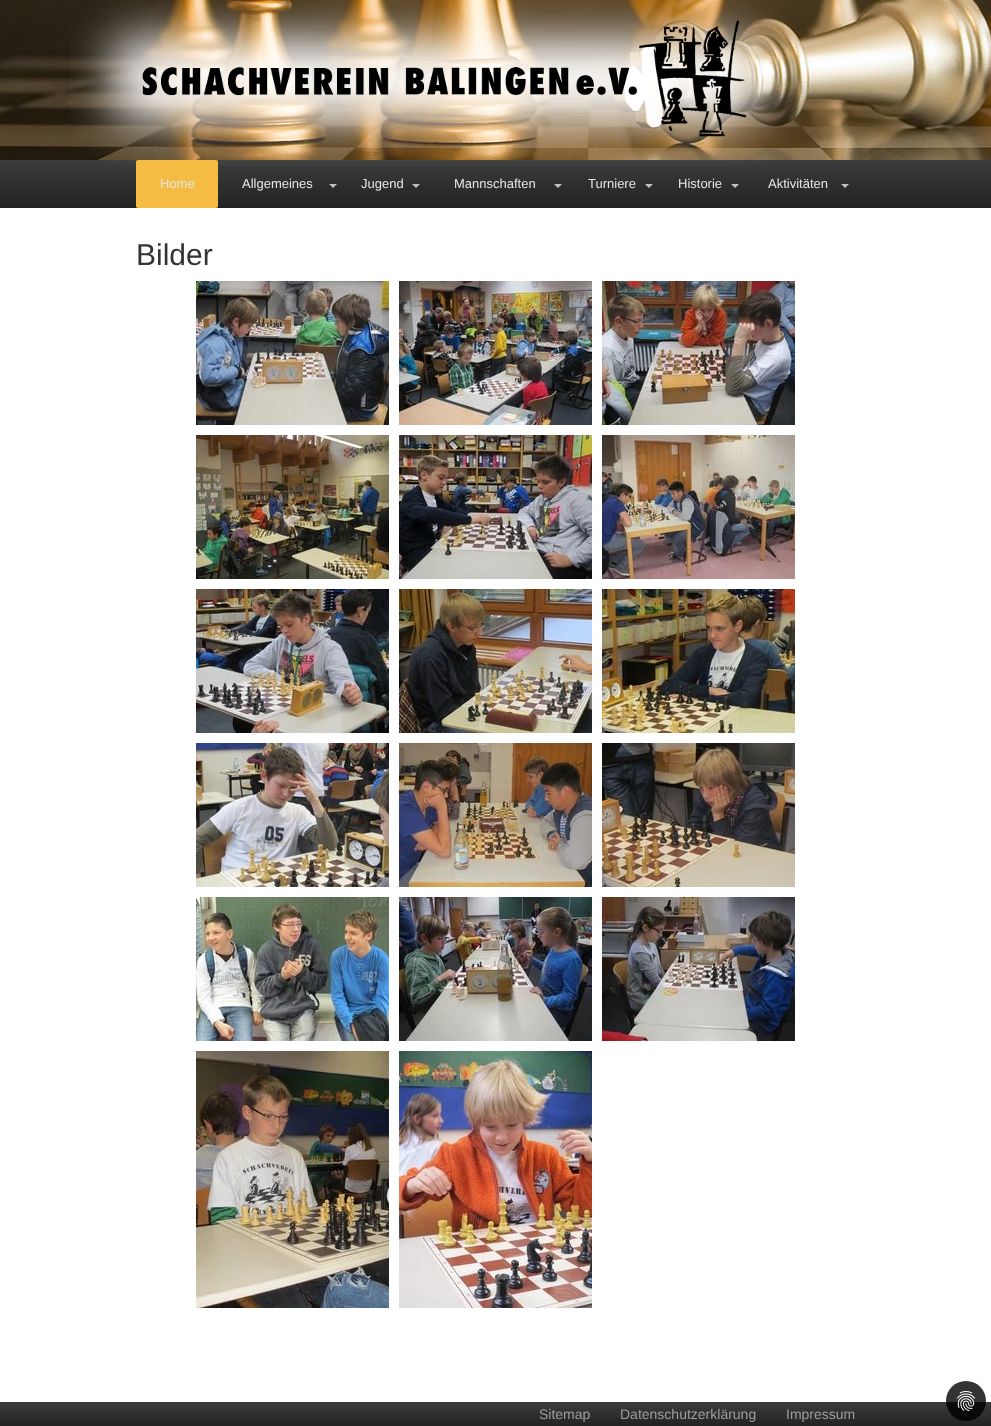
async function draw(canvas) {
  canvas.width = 991;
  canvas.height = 1426;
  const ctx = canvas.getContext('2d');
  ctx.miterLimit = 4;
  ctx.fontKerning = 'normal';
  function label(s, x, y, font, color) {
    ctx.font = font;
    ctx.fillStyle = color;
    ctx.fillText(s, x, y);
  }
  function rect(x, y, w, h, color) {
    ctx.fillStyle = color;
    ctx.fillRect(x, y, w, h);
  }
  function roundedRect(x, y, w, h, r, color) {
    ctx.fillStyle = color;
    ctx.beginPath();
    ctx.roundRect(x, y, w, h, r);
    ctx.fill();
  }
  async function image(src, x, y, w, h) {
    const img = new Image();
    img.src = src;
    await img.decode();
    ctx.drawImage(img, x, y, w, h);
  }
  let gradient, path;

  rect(0, 0, 991, 1426, '#fff');
  await image('assets/img1.png', 0, 0, 991, 160);
  gradient = ctx.createLinearGradient(496, 160, 496, 208);
  gradient.addColorStop(0, '#3c3c3c');
  gradient.addColorStop(1, '#222');
  ctx.fillStyle = gradient;
  ctx.fillRect(0, 160, 991, 48);
  await image('assets/img2.png', 70, 0, 730, 166);
  roundedRect(136, 160, 82, 48, 2, '#f6bb42');
  label('Home', 160, 188, '13px Liberation Sans', '#e5e5e5');
  label('Allgemeines', 242, 188, '13px Liberation Sans', '#e5e5e5');
  ctx.fillStyle = '#c1c1c1';
  path = new Path2D('M329 184H337L333 188Z');
  ctx.fill(path);
  label('Jugend', 361, 188, '13px Liberation Sans', '#e5e5e5');
  ctx.fillStyle = '#c1c1c1';
  path = new Path2D('M412 184H420L416 188Z');
  ctx.fill(path);
  label('Mannschaften', 454, 188, '13px Liberation Sans', '#e5e5e5');
  ctx.fillStyle = '#c1c1c1';
  path = new Path2D('M554 184H562L558 188Z');
  ctx.fill(path);
  label('Turniere', 588, 188, '13px Liberation Sans', '#e5e5e5');
  ctx.fillStyle = '#c1c1c1';
  path = new Path2D('M645 184H653L649 188Z');
  ctx.fill(path);
  label('Historie', 678, 188, '13px Liberation Sans', '#e5e5e5');
  ctx.fillStyle = '#c1c1c1';
  path = new Path2D('M731 184H739L735 188Z');
  ctx.fill(path);
  label('Aktivitäten', 768, 188, '13px Liberation Sans', '#e5e5e5');
  ctx.fillStyle = '#c1c1c1';
  path = new Path2D('M841 184H849L845 188Z');
  ctx.fill(path);
  label('Bilder', 136, 265, '30px Liberation Sans', '#333');
  await image('assets/img3.png', 196, 281, 193, 144);
  await image('assets/img4.png', 399, 281, 193, 144);
  await image('assets/img5.png', 602, 281, 193, 144);
  await image('assets/img6.png', 196, 435, 193, 144);
  await image('assets/img7.png', 399, 435, 193, 144);
  await image('assets/img8.png', 602, 435, 193, 144);
  await image('assets/img9.png', 196, 589, 193, 144);
  await image('assets/img10.png', 399, 589, 193, 144);
  await image('assets/img11.png', 602, 589, 193, 144);
  await image('assets/img12.png', 196, 743, 193, 144);
  await image('assets/img13.png', 399, 743, 193, 144);
  await image('assets/img14.png', 602, 743, 193, 144);
  await image('assets/img15.png', 196, 897, 193, 144);
  await image('assets/img16.png', 399, 897, 193, 144);
  await image('assets/img17.png', 602, 897, 193, 144);
  await image('assets/img18.png', 196, 1051, 193, 257);
  await image('assets/img19.png', 399, 1051, 193, 257);
  gradient = ctx.createLinearGradient(496, 1402, 496, 1426);
  gradient.addColorStop(0, '#3c3c3c');
  gradient.addColorStop(1, '#222');
  ctx.fillStyle = gradient;
  ctx.fillRect(0, 1402, 991, 24);
  label('Sitemap', 539, 1419, '14px Liberation Sans', '#9d9d9d');
  label('Datenschutzerklärung', 620, 1419, '14px Liberation Sans', '#9d9d9d');
  label('Impressum', 786, 1419, '14px Liberation Sans', '#9d9d9d');
  ctx.fillStyle = '#000000cc';
  ctx.beginPath();
  ctx.arc(966, 1401, 20, 0, 2 * Math.PI);
  ctx.fill();
  await image('assets/img20.png', 957, 1391, 18, 20);
}

draw(document.querySelector('canvas'));
